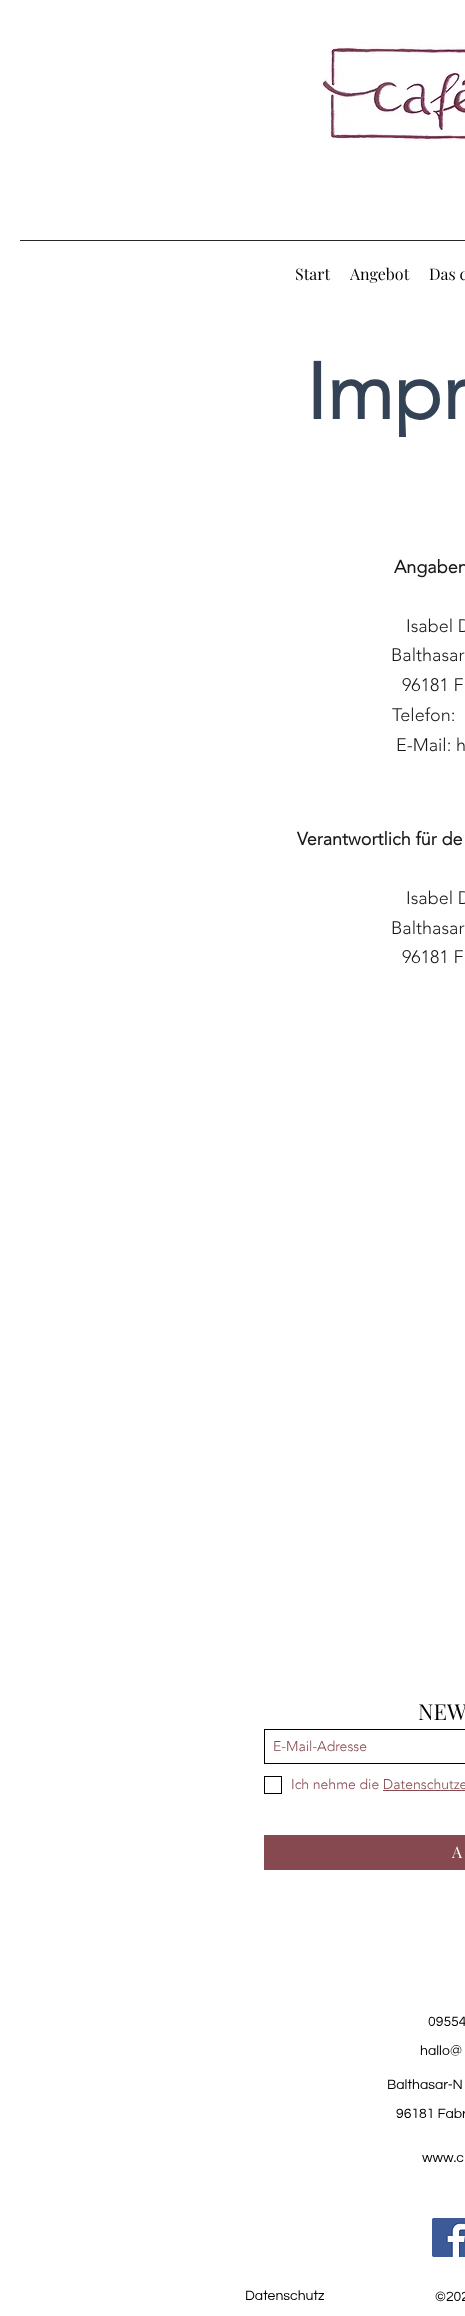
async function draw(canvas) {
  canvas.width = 465;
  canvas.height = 2316;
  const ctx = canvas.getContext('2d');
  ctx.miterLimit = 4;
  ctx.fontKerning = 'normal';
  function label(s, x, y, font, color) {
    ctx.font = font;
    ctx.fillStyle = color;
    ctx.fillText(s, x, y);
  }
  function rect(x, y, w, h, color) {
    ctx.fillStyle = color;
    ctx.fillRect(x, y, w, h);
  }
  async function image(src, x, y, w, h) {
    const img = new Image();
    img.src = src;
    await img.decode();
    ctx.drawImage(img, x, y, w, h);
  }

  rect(0, 0, 465, 2316, '#fff');
  await image('assets/img1.png', 321, 42, 144, 102);
  rect(20, 240, 445, 1, '#262626');
  label('Start', 295, 280, '16px Playfair Display', '#000');
  label('Angebot', 350, 280, '16px Playfair Display', '#000');
  label('Das c', 429, 280, '16px Playfair Display', '#000');
  label('Impr', 306, 419, 'bold 79px "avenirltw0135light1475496"', '#334355');
  label('Angaben', 394, 573, 'bold 18px "avenirltw0135light1475496"', '#181818');
  label('Isabel D', 406, 632, '300 18px "avenirltw0135light1475496"', '#181818');
  label('Balthasar', 391, 661, '300 18px "avenirltw0135light1475496"', '#181818');
  label('96181 F', 402, 691, '300 18px "avenirltw0135light1475496"', '#181818');
  label('Telefon:', 392, 721, '300 18px "avenirltw0135light1475496"', '#181818');
  label('E-Mail: h', 396, 751, '300 18px "avenirltw0135light1475496"', '#181818');
  label('Verantwortlich für de', 297, 845, 'bold 18px "avenirltw0135light1475496"', '#181818');
  label('Isabel D', 406, 904, '300 18px "avenirltw0135light1475496"', '#181818');
  label('Balthasar', 391, 934, '300 18px "avenirltw0135light1475496"', '#181818');
  label('96181 F', 402, 963, '300 18px "avenirltw0135light1475496"', '#181818');
  label('NEW', 418, 1720, '22px Playfair Display', '#000');
  ctx.strokeStyle = '#000';
  ctx.strokeRect(264.5, 1729.5, 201, 34);
  label('E-Mail-Adresse', 273, 1751, '300 14px "avenirltw0135light1475496"', '#874950');
  ctx.strokeRect(264.5, 1776.5, 17, 17);
  label('Ich nehme die Datenschutze', 291, 1789, '300 14px "avenirltw0135light1475496"', '#874950');
  rect(383, 1790, 82, 1, '#874950');
  rect(264, 1835, 201, 35, '#874950');
  label('A', 452, 1858, '16px Playfair Display', '#fff');
  label('09554', 428, 2026, '14px Questrial', '#000');
  label('hallo@', 420, 2055, '14px Questrial', '#000');
  label('Balthasar-N', 387, 2089, '14px Questrial', '#000');
  label('96181 Fabr', 396, 2118, '14px Questrial', '#000');
  label('www.c', 422, 2162, '14px Questrial', '#000');
  await image('assets/img2.png', 432, 2218, 33, 39);
  label('Datenschutz', 245, 2300, '14px Questrial', '#000');
  label('©202', 435, 2301, '14px Questrial', '#000');
}

draw(document.querySelector('canvas'));
